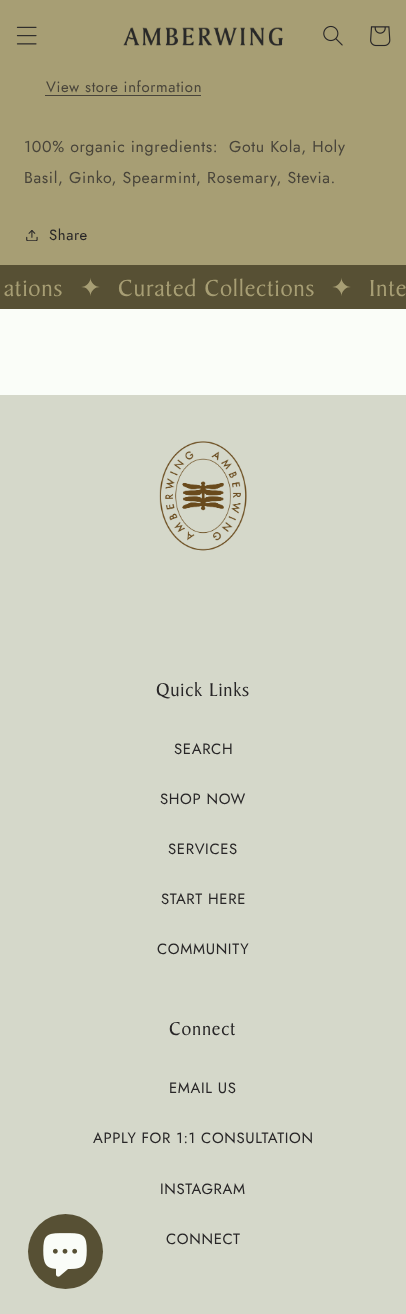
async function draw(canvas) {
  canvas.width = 406;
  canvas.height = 1314;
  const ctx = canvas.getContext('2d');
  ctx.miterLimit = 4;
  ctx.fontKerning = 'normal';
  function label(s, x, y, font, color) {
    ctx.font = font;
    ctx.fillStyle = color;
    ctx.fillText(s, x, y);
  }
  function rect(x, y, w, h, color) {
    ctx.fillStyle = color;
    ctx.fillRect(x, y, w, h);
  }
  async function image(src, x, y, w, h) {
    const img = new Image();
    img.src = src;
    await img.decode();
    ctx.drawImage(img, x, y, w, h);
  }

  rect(0, 0, 406, 1314, '#a79e74');
  await image('assets/img1.png', 16, 26, 21, 19);
  await image('assets/img2.png', 123, 27, 160, 19);
  await image('assets/img3.png', 323, 25, 20, 21);
  await image('assets/img4.png', 370, 26, 21, 21);
  ctx.letterSpacing = '0.65px';
  label('View store information', 46, 92, '14.9px Jost', '#48443a');
  rect(45, 95, 156, 1, '#48443a');
  label('100% organic ingredients:  Gotu Kola, Holy', 24, 152, '15.9px Jost', '#48443a');
  label('Basil, Ginko, Spearmint, Rosemary, Stevia.', 24, 183, '15.9px Jost', '#48443a');
  await image('assets/img5.png', 26, 230, 12, 11);
  label('Share', 49, 240, '14.9px Jost', '#282627');
  rect(0, 265, 406, 44, '#575034');
  ctx.letterSpacing = '0.75px';
  label('ations', 4, 296, '25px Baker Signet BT', '#a79e74');
  label('✦', 80, 296, '25px DejaVu Sans', '#a79e74');
  label('Curated Collections', 118, 296, '25px Baker Signet BT', '#a79e74');
  label('✦', 331, 296, '25px DejaVu Sans', '#a79e74');
  label('Inte', 369, 296, '25px Baker Signet BT', '#a79e74');
  rect(0, 309, 406, 86, '#fafdf8');
  rect(0, 395, 406, 919, '#d5d8ca');
  ctx.fillStyle = '#575034';
  ctx.beginPath();
  ctx.arc(65.5, 1251.5, 37.5, 0, 2 * Math.PI);
  ctx.fill();
  await image('assets/img6.png', 43, 1233, 44, 44);
  await image('assets/img7.png', 159, 441, 88, 110);
  label('Quick Links', 156, 696, '20px Baker Signet BT', '#282627');
  ctx.letterSpacing = '0.65px';
  label('SEARCH', 174, 754, '14.9px Jost', '#282627');
  label('SHOP NOW', 160, 804, '14.9px Jost', '#282627');
  label('SERVICES', 168, 854, '14.9px Jost', '#282627');
  label('START HERE', 161, 904, '14.9px Jost', '#282627');
  label('COMMUNITY', 157, 954, '14.9px Jost', '#282627');
  ctx.letterSpacing = '0.75px';
  label('Connect', 169, 1035, '20px Baker Signet BT', '#282627');
  ctx.letterSpacing = '0.65px';
  label('EMAIL US', 169, 1093, '14.9px Jost', '#282627');
  label('APPLY FOR 1:1 CONSULTATION', 93, 1143, '14.9px Jost', '#282627');
  label('INSTAGRAM', 160, 1194, '14.9px Jost', '#282627');
  label('CONNECT', 166, 1244, '14.9px Jost', '#282627');
}

draw(document.querySelector('canvas'));
